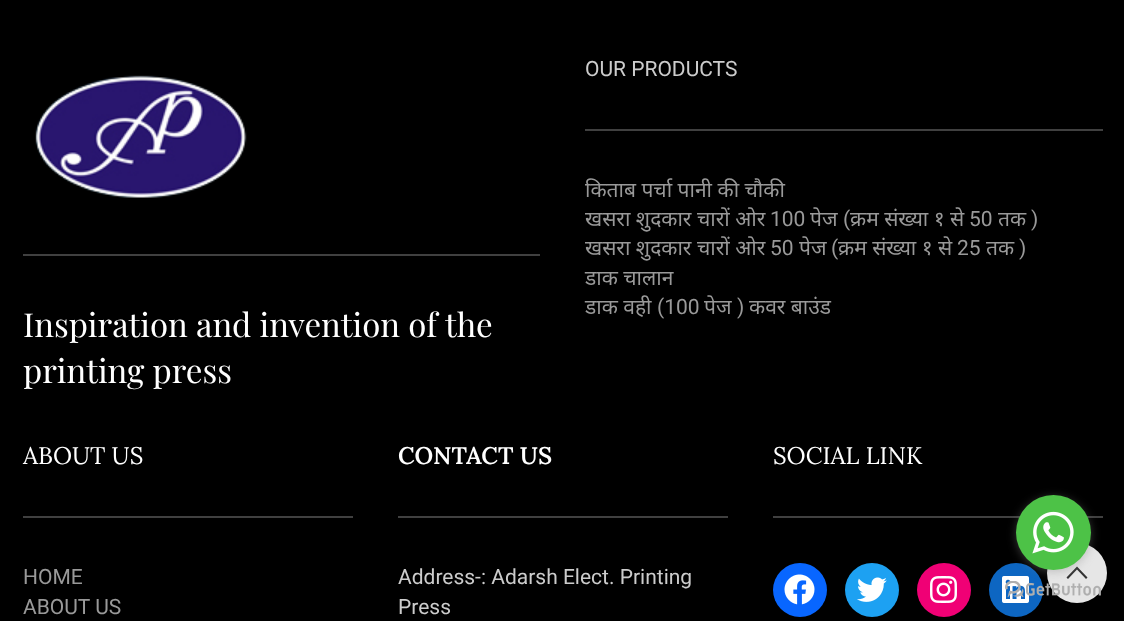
async function draw(canvas) {
  canvas.width = 1124;
  canvas.height = 621;
  const ctx = canvas.getContext('2d');
  ctx.miterLimit = 4;
  ctx.fontKerning = 'normal';
  function label(s, x, y, font, color) {
    ctx.font = font;
    ctx.fillStyle = color;
    ctx.fillText(s, x, y);
  }
  function rect(x, y, w, h, color) {
    ctx.fillStyle = color;
    ctx.fillRect(x, y, w, h);
  }
  async function image(src, x, y, w, h) {
    const img = new Image();
    img.src = src;
    await img.decode();
    ctx.drawImage(img, x, y, w, h);
  }
  let path;

  rect(0, 0, 1124, 621, '#000');
  rect(585, 129, 518, 2, '#404040');
  label('OUR PRODUCTS', 585, 76, '21px Roboto', '#ccc');
  label('किताब पर्चा पानी की चौकी', 585, 197, '21px Noto Sans', '#999');
  label('खसरा शुदकार चारों ओर', 585, 226, '21px Noto Sans', '#999');
  label('100', 770, 226, '21px Roboto', '#999');
  label('पेज', 810, 226, '21px Noto Sans', '#999');
  label('(', 843, 226, '21px Roboto', '#999');
  label('क्रम संख्या १ से', 850, 226, '21px Noto Sans', '#999');
  label('50', 969, 226, '21px Roboto', '#999');
  label('तक', 998, 226, '21px Noto Sans', '#999');
  label(')', 1031, 226, '21px Roboto', '#999');
  label('खसरा शुदकार चारों ओर', 585, 255, '21px Noto Sans', '#999');
  label('50', 770, 255, '21px Roboto', '#999');
  label('पेज', 799, 255, '21px Noto Sans', '#999');
  label('(', 831, 255, '21px Roboto', '#999');
  label('क्रम संख्या १ से', 838, 255, '21px Noto Sans', '#999');
  label('25', 957, 255, '21px Roboto', '#999');
  label('तक', 986, 255, '21px Noto Sans', '#999');
  label(')', 1019, 255, '21px Roboto', '#999');
  label('डाक चालान', 585, 285, '21px Noto Sans', '#999');
  label('डाक वही', 585, 314, '21px Noto Sans', '#999');
  label('(100', 657, 314, '21px Roboto', '#999');
  label('पेज', 704, 314, '21px Noto Sans', '#999');
  label(')', 737, 314, '21px Roboto', '#999');
  label('कवर बाउंड', 749, 314, '21px Noto Sans', '#999');
  rect(23, 254, 517, 2, '#404040');
  await image('assets/img1.png', 35, 75, 212, 123);
  label('Inspiration and invention of the', 23, 337, '33px Playfair Display', '#fff');
  label('printing press', 23, 383, '33px Playfair Display', '#fff');
  rect(23, 516, 330, 2, '#404040');
  label('ABOUT US', 23, 464, '24px Lora', '#fff');
  label('HOME', 23, 584, '21px Roboto', '#999');
  label('ABOUT US', 23, 614, '21px Roboto', '#999');
  rect(398, 516, 330, 2, '#404040');
  label('CONTACT US', 398, 464, '600 24px Lora', '#fff');
  label('Address-: Adarsh Elect. Printing', 398, 584, '21px Roboto', '#ccc');
  label('Press', 398, 614, '21px Roboto', '#ccc');
  rect(773, 516, 330, 2, '#404040');
  label('SOCIAL LINK', 773, 464, '24px Lora', '#fff');
  ctx.fillStyle = '#0866ff';
  ctx.beginPath();
  ctx.arc(800, 590, 27, 0, 2 * Math.PI);
  ctx.fill();
  await image('assets/img2.png', 784, 574, 31, 31);
  ctx.fillStyle = '#1da1f2';
  ctx.beginPath();
  ctx.arc(872, 590, 27, 0, 2 * Math.PI);
  ctx.fill();
  await image('assets/img3.png', 857, 577, 30, 25);
  ctx.fillStyle = '#f00075';
  ctx.beginPath();
  ctx.arc(944, 590, 27, 0, 2 * Math.PI);
  ctx.fill();
  await image('assets/img4.png', 930, 576, 27, 27);
  ctx.fillStyle = '#0d66c2';
  ctx.beginPath();
  ctx.arc(1016, 590, 27, 0, 2 * Math.PI);
  ctx.fill();
  await image('assets/img5.png', 1002, 576, 27, 27);
  ctx.fillStyle = '#e6e6e6';
  ctx.beginPath();
  ctx.arc(1077, 573, 30, 0, 2 * Math.PI);
  ctx.fill();
  await image('assets/img7.png', 1005, 581, 96, 16);
  ctx.fillStyle = '#333';
  path = new Path2D('M1077 566.5L1087.5 577.5L1086 579L1077 569.5L1068 579L1066.5 577.5Z');
  ctx.fill(path);
  ctx.fillStyle = '#88888866';
  ctx.filter = 'blur(5px)';
  ctx.beginPath();
  ctx.roundRect(1016, 497, 75, 75, 37.5);
  ctx.fill();
  ctx.filter = 'none';
  ctx.fillStyle = '#4dc247';
  ctx.beginPath();
  ctx.arc(1053.5, 532.5, 37.5, 0, 2 * Math.PI);
  ctx.fill();
  await image('assets/img6.png', 1032, 511, 42, 43);
}

draw(document.querySelector('canvas'));
